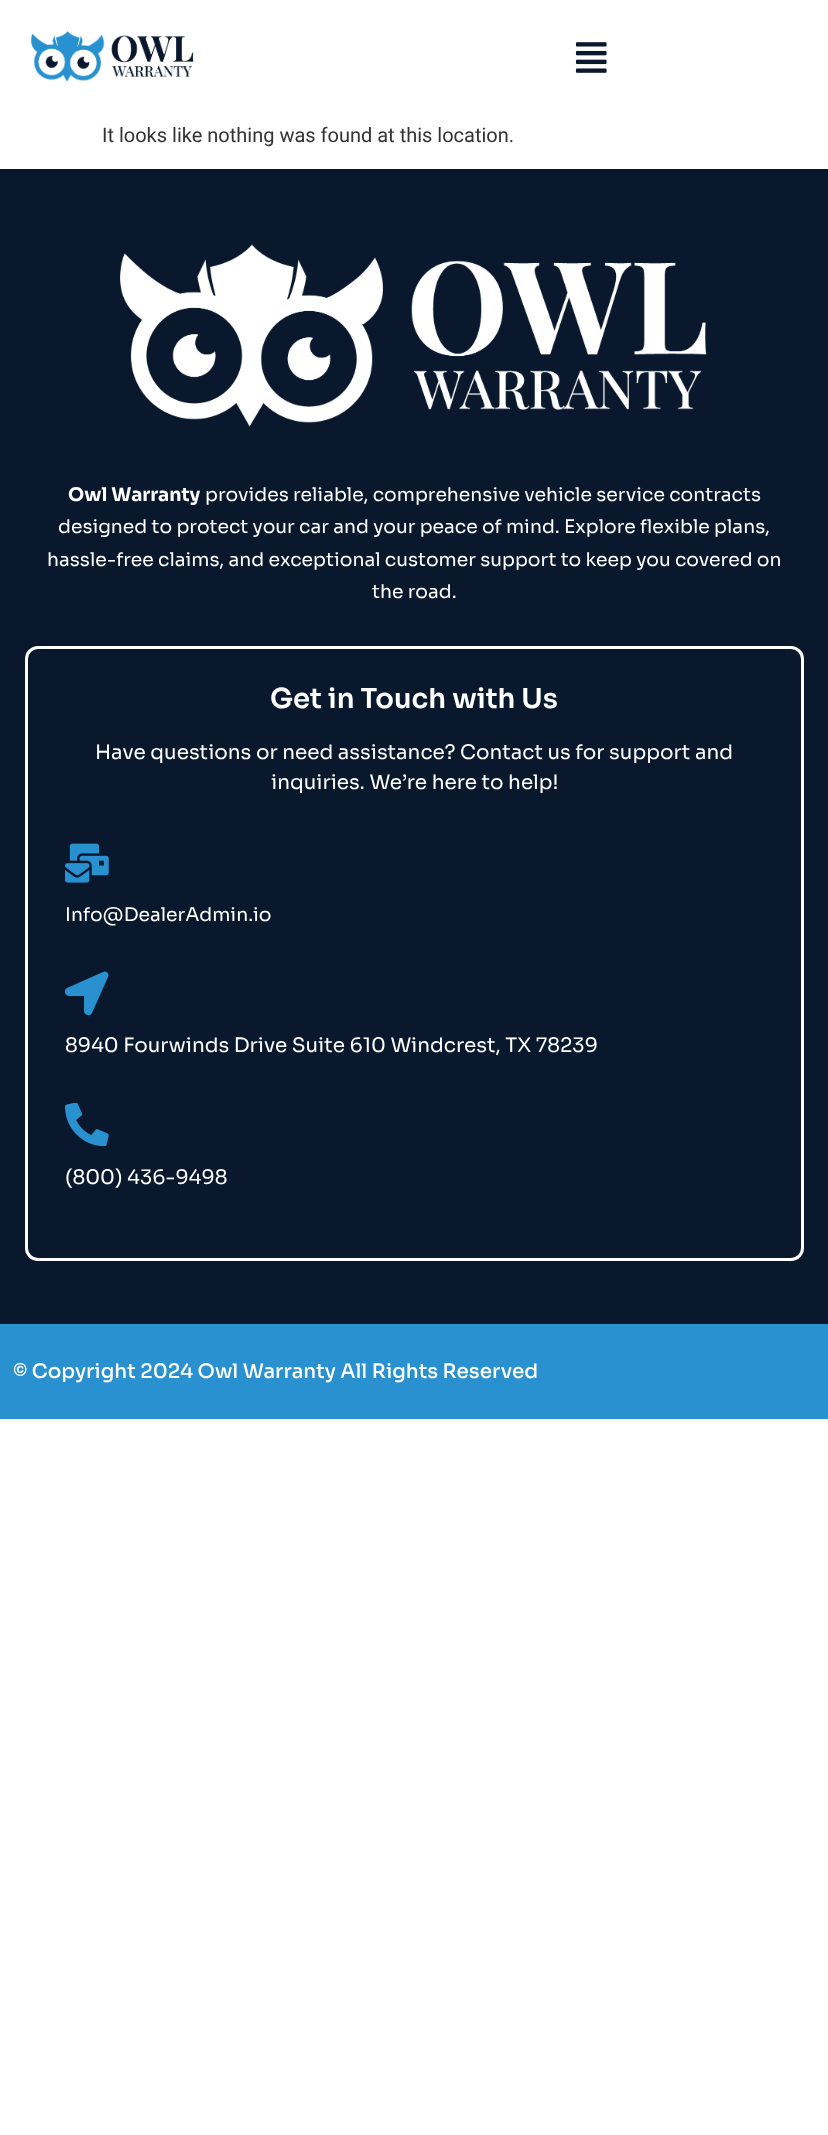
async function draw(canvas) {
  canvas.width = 828;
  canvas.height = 2135;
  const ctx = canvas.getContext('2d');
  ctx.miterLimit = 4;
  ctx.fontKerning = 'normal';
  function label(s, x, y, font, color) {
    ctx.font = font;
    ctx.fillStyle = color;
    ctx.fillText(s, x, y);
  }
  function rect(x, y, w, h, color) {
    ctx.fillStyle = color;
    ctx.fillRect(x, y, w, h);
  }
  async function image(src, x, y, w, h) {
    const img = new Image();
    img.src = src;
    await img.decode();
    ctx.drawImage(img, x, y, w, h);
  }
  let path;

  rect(0, 0, 828, 2135, '#fff');
  await image('assets/img1.png', 31, 31, 163, 51);
  await image('assets/img2.png', 575, 42, 32, 31);
  label('It looks like nothing was found at this location.', 102, 142, '20px Roboto', '#333');
  rect(0, 169, 828, 1155, '#09182d');
  await image('assets/img3.png', 120, 244, 587, 183);
  label('Owl Warranty', 68, 501, 'bold 18.75px Sora', '#fff');
  label('provides reliable, comprehensive vehicle service contracts', 205, 501, '18.75px Sora', '#fff');
  label('designed to protect your car and your peace of mind. Explore flexible plans,', 58, 533, '18.75px Sora', '#fff');
  label('hassle-free claims, and exceptional customer support to keep you covered on', 47, 566, '18.75px Sora', '#fff');
  label('the road.', 372, 598, '18.75px Sora', '#fff');
  ctx.beginPath();
  ctx.roundRect(26.5, 647.5, 776, 612, 11.5);
  ctx.strokeStyle = '#fff';
  ctx.lineWidth = 3;
  ctx.stroke();
  label('Get in Touch with Us', 270, 708, '600 27.5px Sora', '#fff');
  label('Have questions or need assistance? Contact us for support and', 95, 759, '20px Sora', '#fff');
  label('inquiries. We’re here to help!', 271, 789, '20px Sora', '#fff');
  await image('assets/img4.png', 65, 843, 44, 40);
  label('Info@DealerAdmin.io', 65, 921, '18.75px Sora', '#fff');
  ctx.fillStyle = '#2991cf';
  path = new Path2D('M103 972L67 988C63 990 65 996 69 996H84V1011C84 1015 90 1017 92 1013L108 977C110 974 106 970 103 972Z');
  ctx.fill(path);
  label('8940 Fourwinds Drive Suite 610 Windcrest, TX 78239', 65, 1052, '20px Sora', '#fff');
  await image('assets/img5.png', 65, 1103, 44, 43);
  label('(800) 436-9498', 65, 1184, '20px Sora', '#fff');
  rect(0, 1324, 828, 95, '#2991cf');
  label('© Copyright 2024 Owl Warranty All Rights Reserved', 13, 1378, '500 20px Sora', '#fff');
}

draw(document.querySelector('canvas'));
